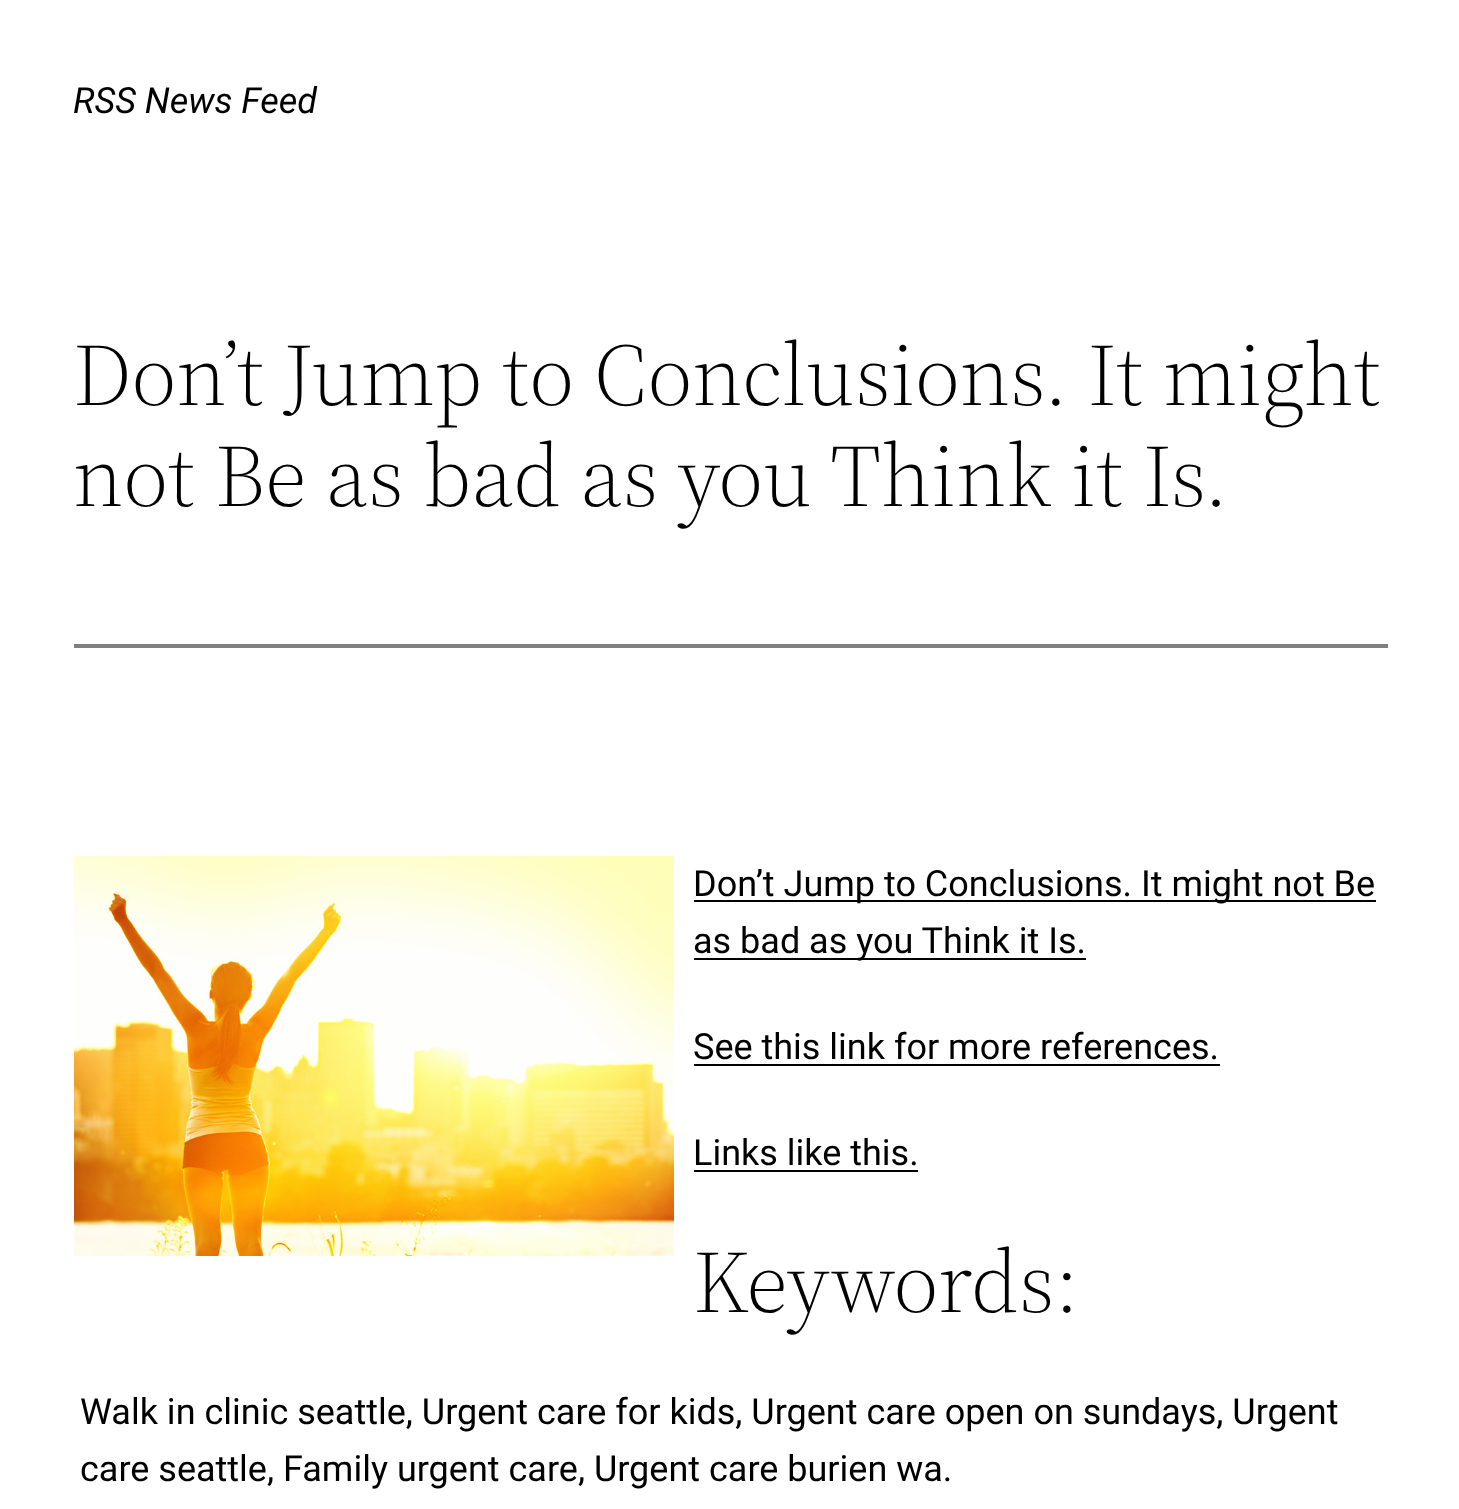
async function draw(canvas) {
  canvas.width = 1459;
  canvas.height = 1509;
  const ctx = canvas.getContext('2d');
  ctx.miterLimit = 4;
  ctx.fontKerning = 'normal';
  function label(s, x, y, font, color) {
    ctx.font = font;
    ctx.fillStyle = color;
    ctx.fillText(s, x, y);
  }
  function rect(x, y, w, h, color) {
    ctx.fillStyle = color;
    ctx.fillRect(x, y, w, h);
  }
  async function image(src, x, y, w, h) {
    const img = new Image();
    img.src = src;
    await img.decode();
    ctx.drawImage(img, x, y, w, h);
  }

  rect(0, 0, 1459, 1509, '#fff');
  label('RSS News Feed', 73, 113, 'italic 36px Roboto', '#000');
  label('Don’t Jump to Conclusions. It might', 73, 405, '300 88px "Source Serif 4"', '#000');
  label('not Be as bad as you Think it Is.', 73, 506, '300 88px "Source Serif 4"', '#000');
  rect(74, 644, 1314, 4, '#808080');
  await image('assets/img1.png', 74, 856, 600, 400);
  rect(694, 900, 682, 2, '#000');
  label('Don’t Jump to Conclusions. It might not Be', 693, 896, '36px Roboto', '#000');
  rect(694, 958, 392, 2, '#000');
  label('as bad as you Think it Is.', 693, 953, '36px Roboto', '#000');
  label('See this link for more references.', 693, 1059, '36px Roboto', '#000');
  rect(694, 1064, 526, 2, '#000');
  label('Links like this.', 693, 1165, '36px Roboto', '#000');
  rect(694, 1170, 224, 2, '#000');
  label('Keywords:', 693, 1312, '300 88px "Source Serif 4"', '#000');
  label('Walk in clinic seattle, Urgent care for kids, Urgent care open on sundays, Urgent', 80, 1424, '36px Roboto', '#000');
  label('care seattle, Family urgent care, Urgent care burien wa.', 80, 1481, '36px Roboto', '#000');
}

draw(document.querySelector('canvas'));
